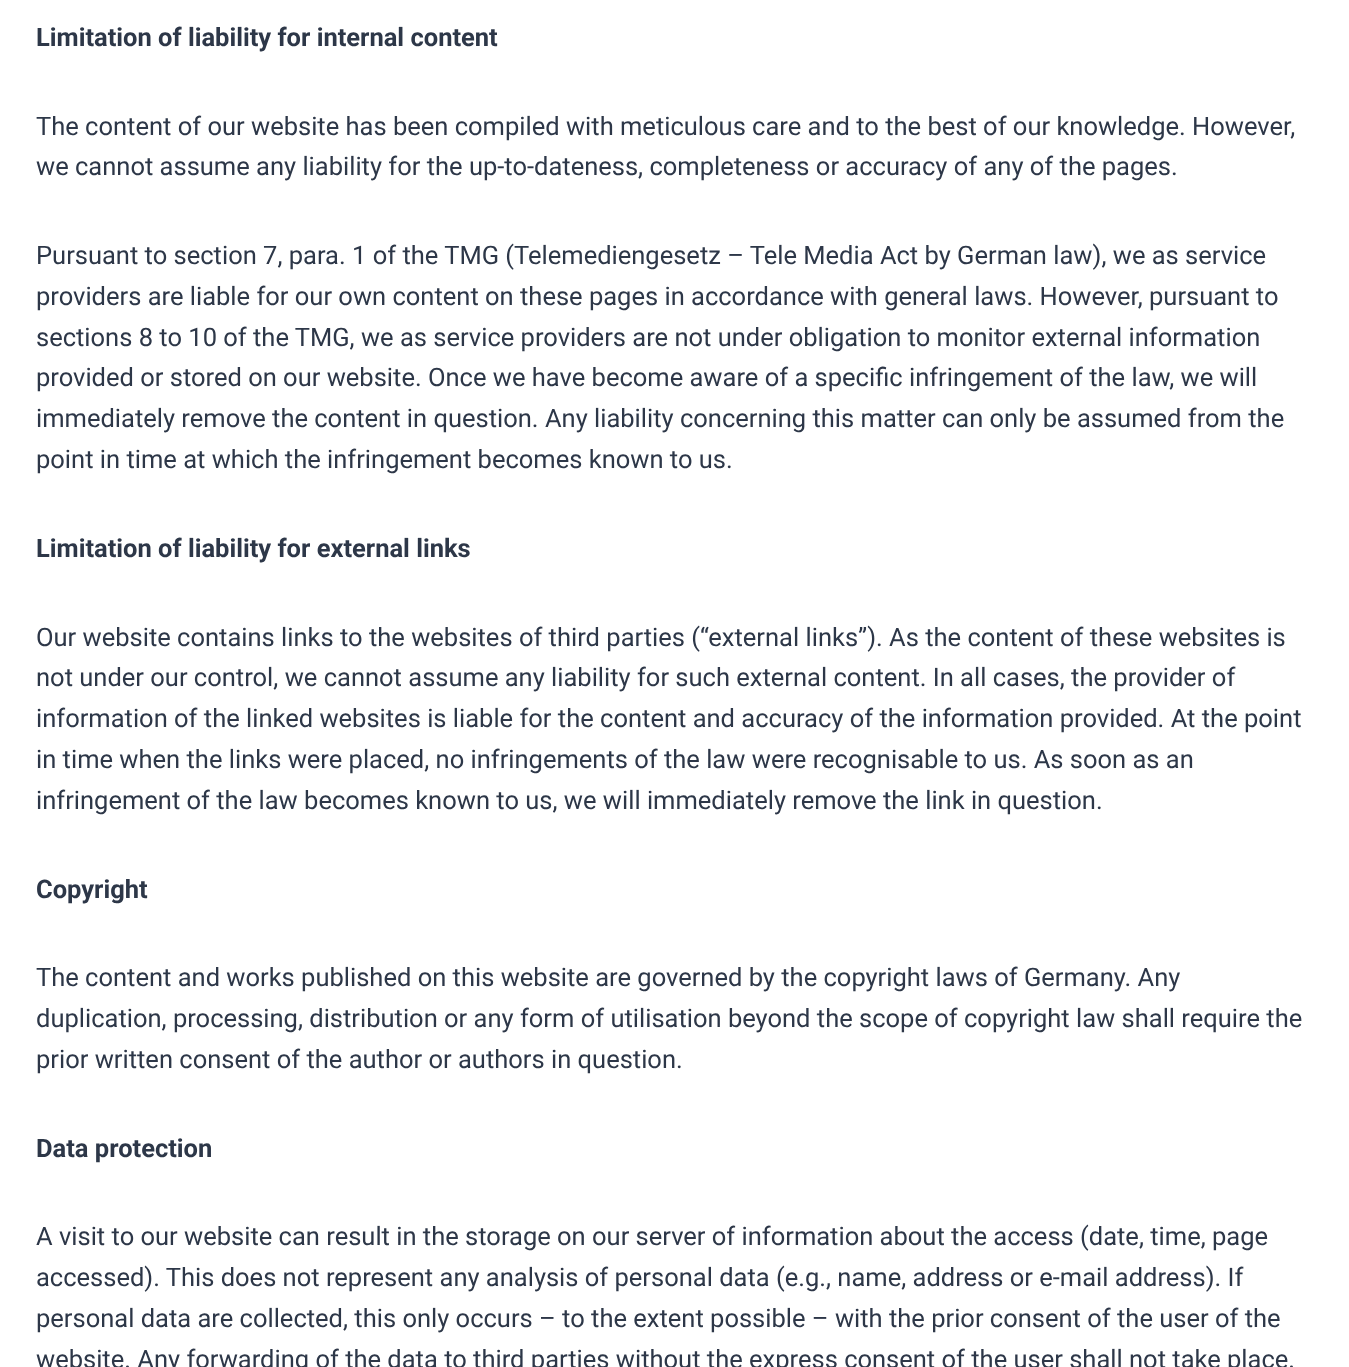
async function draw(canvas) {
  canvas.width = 1349;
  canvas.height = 1367;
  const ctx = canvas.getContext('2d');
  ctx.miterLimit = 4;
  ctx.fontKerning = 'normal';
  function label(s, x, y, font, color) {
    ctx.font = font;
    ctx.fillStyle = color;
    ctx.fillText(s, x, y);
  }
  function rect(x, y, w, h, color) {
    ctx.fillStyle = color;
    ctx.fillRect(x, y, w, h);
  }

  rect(0, 0, 1349, 1367, '#fff');
  label('Limitation of liability for internal content', 36, 46, 'bold 25.5px Roboto', '#2d3748');
  label('The content of our website has been compiled with meticulous care and to the best of our knowledge. However,', 36, 135, '25.5px Roboto', '#2d3748');
  label('we cannot assume any liability for the up-to-dateness, completeness or accuracy of any of the pages.', 36, 175, '25.5px Roboto', '#2d3748');
  label('Pursuant to section 7, para. 1 of the TMG (Telemediengesetz – Tele Media Act by German law), we as service', 36, 264, '25.5px Roboto', '#2d3748');
  label('providers are liable for our own content on these pages in accordance with general laws. However, pursuant to', 36, 305, '25.5px Roboto', '#2d3748');
  label('sections 8 to 10 of the TMG, we as service providers are not under obligation to monitor external information', 36, 346, '25.5px Roboto', '#2d3748');
  label('provided or stored on our website. Once we have become aware of a specific infringement of the law, we will', 36, 386, '25.5px Roboto', '#2d3748');
  label('immediately remove the content in question. Any liability concerning this matter can only be assumed from the', 36, 427, '25.5px Roboto', '#2d3748');
  label('point in time at which the infringement becomes known to us.', 36, 468, '25.5px Roboto', '#2d3748');
  label('Limitation of liability for external links', 36, 557, 'bold 25.5px Roboto', '#2d3748');
  label('Our website contains links to the websites of third parties (“external links”). As the content of these websites is', 36, 646, '25.5px Roboto', '#2d3748');
  label('not under our control, we cannot assume any liability for such external content. In all cases, the provider of', 36, 686, '25.5px Roboto', '#2d3748');
  label('information of the linked websites is liable for the content and accuracy of the information provided. At the point', 36, 727, '25.5px Roboto', '#2d3748');
  label('in time when the links were placed, no infringements of the law were recognisable to us. As soon as an', 36, 768, '25.5px Roboto', '#2d3748');
  label('infringement of the law becomes known to us, we will immediately remove the link in question.', 36, 809, '25.5px Roboto', '#2d3748');
  label('Copyright', 36, 898, 'bold 25.5px Roboto', '#2d3748');
  label('The content and works published on this website are governed by the copyright laws of Germany. Any', 36, 986, '25.5px Roboto', '#2d3748');
  label('duplication, processing, distribution or any form of utilisation beyond the scope of copyright law shall require the', 36, 1027, '25.5px Roboto', '#2d3748');
  label('prior written consent of the author or authors in question.', 36, 1068, '25.5px Roboto', '#2d3748');
  label('Data protection', 36, 1157, 'bold 25.5px Roboto', '#2d3748');
  label('A visit to our website can result in the storage on our server of information about the access (date, time, page', 36, 1245, '25.5px Roboto', '#2d3748');
  label('accessed). This does not represent any analysis of personal data (e.g., name, address or e-mail address). If', 36, 1286, '25.5px Roboto', '#2d3748');
  label('personal data are collected, this only occurs – to the extent possible – with the prior consent of the user of the', 36, 1327, '25.5px Roboto', '#2d3748');
  label('website. Any forwarding of the data to third parties without the express consent of the user shall not take place.', 36, 1368, '25.5px Roboto', '#2d3748');
}

draw(document.querySelector('canvas'));
